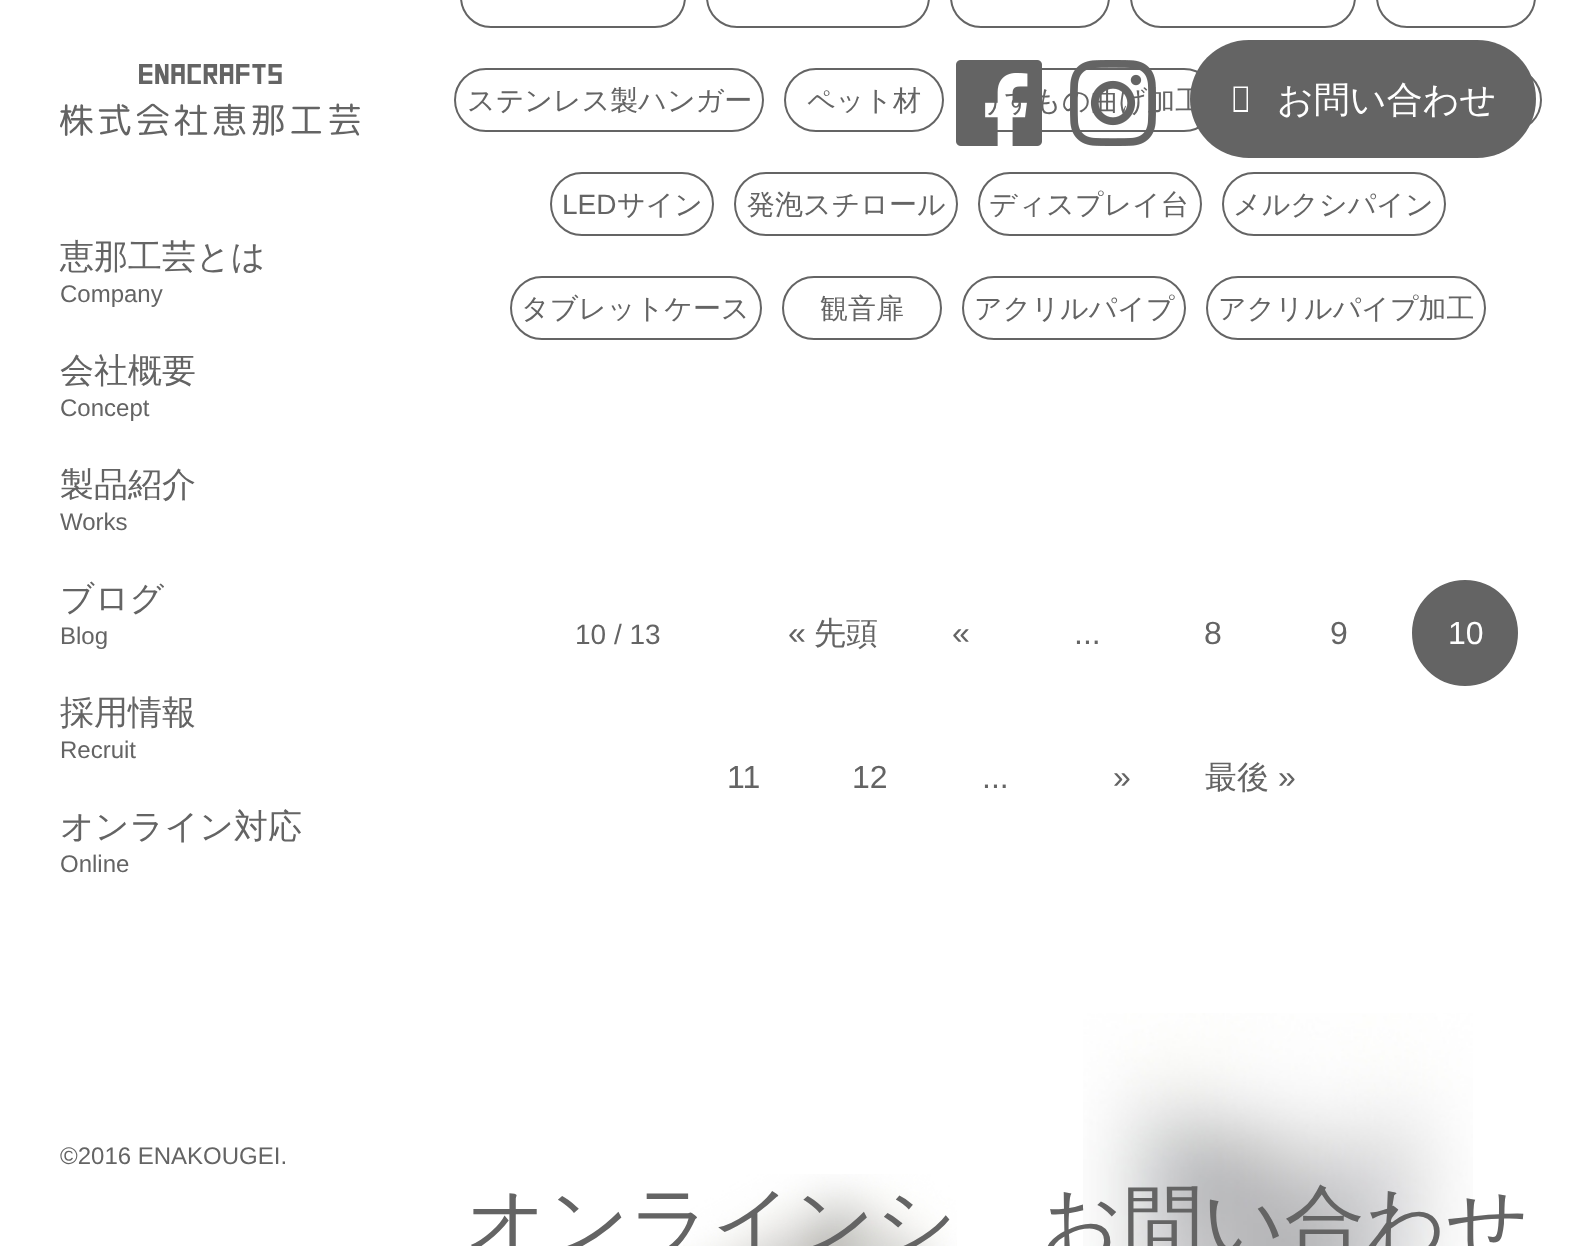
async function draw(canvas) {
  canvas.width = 1596;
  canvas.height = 1246;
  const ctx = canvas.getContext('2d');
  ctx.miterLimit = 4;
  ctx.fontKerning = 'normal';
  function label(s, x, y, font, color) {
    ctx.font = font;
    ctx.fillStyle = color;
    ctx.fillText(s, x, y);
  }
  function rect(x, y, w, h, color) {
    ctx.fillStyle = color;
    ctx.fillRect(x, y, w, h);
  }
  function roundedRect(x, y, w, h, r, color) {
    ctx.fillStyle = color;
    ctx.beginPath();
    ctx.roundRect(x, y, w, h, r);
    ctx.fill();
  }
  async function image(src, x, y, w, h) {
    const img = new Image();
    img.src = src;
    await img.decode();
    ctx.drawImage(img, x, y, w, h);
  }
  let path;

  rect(0, 0, 1596, 1246, '#fff');
  await image('assets/img1.png', 60, 64, 300, 72);
  ctx.beginPath();
  ctx.roundRect(965, 69, 250, 62, 31);
  ctx.strokeStyle = '#646464';
  ctx.lineWidth = 2;
  ctx.stroke();
  label('うすもの曲げ加工', 976, 110, '500 28px WenQuanYi Zen Hei', '#646464');
  await image('assets/img2.png', 956, 60, 86, 86);
  await image('assets/img3.png', 1070, 60, 86, 86);
  ctx.beginPath();
  ctx.roundRect(1237, 69, 304, 62, 31);
  ctx.stroke();
  roundedRect(1190, 40, 346, 118, 59, '#646464');
  ctx.fillStyle = '#fff';
  path = new Path2D('M1233.5 112V86.5H1248V112ZM1235 110H1246.5V88H1235Z');
  ctx.fill(path);
  label('お問い合わせ', 1277, 112, '500 36px WenQuanYi Zen Hei', '#fff');
  label('恵那工芸とは', 60, 268, '500 34px WenQuanYi Zen Hei', '#646464');
  label('Company', 60, 302, '24px Liberation Sans', '#646464');
  label('会社概要', 60, 382, '500 34px WenQuanYi Zen Hei', '#646464');
  label('Concept', 60, 416, '24px Liberation Sans', '#646464');
  label('製品紹介', 60, 496, '500 34px WenQuanYi Zen Hei', '#646464');
  label('Works', 60, 530, '24px Liberation Sans', '#646464');
  label('ブログ', 60, 610, '500 34px WenQuanYi Zen Hei', '#646464');
  label('Blog', 60, 644, '24px Liberation Sans', '#646464');
  label('採用情報', 60, 724, '500 34px WenQuanYi Zen Hei', '#646464');
  label('Recruit', 60, 758, '24px Liberation Sans', '#646464');
  label('オンライン対応', 60, 838, '500 34px WenQuanYi Zen Hei', '#646464');
  label('Online', 60, 872, '24px Liberation Sans', '#646464');
  label('©2016 ENAKOUGEI.', 60, 1164, '24px Liberation Sans', '#646464');
  ctx.beginPath();
  ctx.roundRect(461, -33, 224, 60, 31);
  ctx.stroke();
  ctx.beginPath();
  ctx.roundRect(707, -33, 222, 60, 31);
  ctx.stroke();
  ctx.beginPath();
  ctx.roundRect(951, -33, 158, 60, 31);
  ctx.stroke();
  ctx.beginPath();
  ctx.roundRect(1131, -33, 224, 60, 31);
  ctx.stroke();
  ctx.beginPath();
  ctx.roundRect(1377, -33, 158, 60, 31);
  ctx.stroke();
  ctx.beginPath();
  ctx.roundRect(455, 69, 308, 62, 31);
  ctx.stroke();
  label('ステンレス製ハンガー', 467, 110, '500 28px WenQuanYi Zen Hei', '#646464');
  ctx.beginPath();
  ctx.roundRect(785, 69, 158, 62, 31);
  ctx.stroke();
  label('ペット材', 807, 110, '500 28px WenQuanYi Zen Hei', '#646464');
  ctx.beginPath();
  ctx.roundRect(551, 173, 162, 62, 31);
  ctx.stroke();
  label('LED', 562, 214, '28px Liberation Sans', '#646464');
  label('サイン', 617, 214, '500 28px WenQuanYi Zen Hei', '#646464');
  ctx.beginPath();
  ctx.roundRect(735, 173, 222, 62, 31);
  ctx.stroke();
  label('発泡スチロール', 747, 214, '500 28px WenQuanYi Zen Hei', '#646464');
  ctx.beginPath();
  ctx.roundRect(979, 173, 222, 62, 31);
  ctx.stroke();
  label('ディスプレイ台', 989, 214, '500 28px WenQuanYi Zen Hei', '#646464');
  ctx.beginPath();
  ctx.roundRect(1223, 173, 222, 62, 31);
  ctx.stroke();
  label('メルクシパイン', 1233, 214, '500 28px WenQuanYi Zen Hei', '#646464');
  ctx.beginPath();
  ctx.roundRect(511, 277, 250, 62, 31);
  ctx.stroke();
  label('タブレットケース', 521, 318, '500 28px WenQuanYi Zen Hei', '#646464');
  ctx.beginPath();
  ctx.roundRect(783, 277, 158, 62, 31);
  ctx.stroke();
  label('観音扉', 820, 318, '500 28px WenQuanYi Zen Hei', '#646464');
  ctx.beginPath();
  ctx.roundRect(963, 277, 222, 62, 31);
  ctx.stroke();
  label('アクリルパイプ', 974, 318, '500 28px WenQuanYi Zen Hei', '#646464');
  ctx.beginPath();
  ctx.roundRect(1207, 277, 278, 62, 31);
  ctx.stroke();
  label('アクリルパイプ加工', 1218, 318, '500 28px WenQuanYi Zen Hei', '#646464');
  label('10 / 13', 575, 644, '28px Liberation Sans', '#646464');
  label('«', 788, 644, '32px Liberation Sans', '#646464');
  label('先頭', 814, 644, '500 32px WenQuanYi Zen Hei', '#646464');
  label('«', 952, 644, '32px Liberation Sans', '#646464');
  label('...', 1074, 644, '32px Liberation Sans', '#646464');
  label('8', 1204, 644, '32px Liberation Sans', '#646464');
  label('9', 1330, 644, '32px Liberation Sans', '#646464');
  ctx.beginPath();
  ctx.arc(1465, 633, 52, 0, 2 * Math.PI);
  ctx.fill();
  ctx.stroke();
  label('10', 1448, 644, '32px Liberation Sans', '#fff');
  label('11', 727, 788, '32px Liberation Sans', '#646464');
  label('12', 852, 788, '32px Liberation Sans', '#646464');
  label('...', 982, 788, '32px Liberation Sans', '#646464');
  label('»', 1113, 788, '32px Liberation Sans', '#646464');
  label('最後', 1205, 788, '500 32px WenQuanYi Zen Hei', '#646464');
  label('»', 1278, 788, '32px Liberation Sans', '#646464');
  await image('assets/img4.png', 683, 1174, 274, 72);
  label('オンラインシ', 466, 1250, '500 80px WenQuanYi Zen Hei', '#646464');
  await image('assets/img5.png', 1083, 1013, 390, 233);
  label('お問い合わせ', 1041, 1250, '500 80px WenQuanYi Zen Hei', '#646464');
}

draw(document.querySelector('canvas'));
